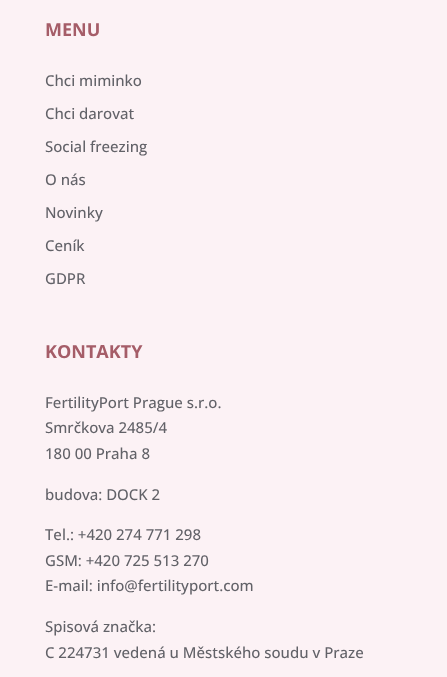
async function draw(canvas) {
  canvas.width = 447;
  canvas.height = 677;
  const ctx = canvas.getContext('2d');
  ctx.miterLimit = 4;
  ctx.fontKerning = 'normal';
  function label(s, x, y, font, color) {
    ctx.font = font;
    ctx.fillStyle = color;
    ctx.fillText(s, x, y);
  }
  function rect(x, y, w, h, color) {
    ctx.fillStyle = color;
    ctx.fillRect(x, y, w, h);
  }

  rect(0, 0, 447, 677, '#fcf2f5');
  label('MENU', 45, 36, 'bold 18px Open Sans', '#a55d68');
  label('Chci miminko', 45, 86, '500 15px Open Sans', '#626268');
  label('Chci darovat', 45, 119, '500 15px Open Sans', '#626268');
  label('Social freezing', 45, 152, '500 15px Open Sans', '#626268');
  label('O nás', 45, 185, '500 15px Open Sans', '#626268');
  label('Novinky', 45, 218, '500 15px Open Sans', '#626268');
  label('Ceník', 45, 251, '500 15px Open Sans', '#626268');
  label('GDPR', 45, 284, '500 15px Open Sans', '#626268');
  label('KONTAKTY', 45, 358, 'bold 18px Open Sans', '#a55d68');
  label('FertilityPort Prague s.r.o.', 45, 408, '500 15px Open Sans', '#626268');
  label('Smrčkova 2485/4', 45, 433, '500 15px Open Sans', '#626268');
  label('180 00 Praha 8', 45, 459, '500 15px Open Sans', '#626268');
  label('budova: DOCK 2', 45, 500, '500 15px Open Sans', '#626268');
  label('Tel.: +420 274 771 298', 45, 540, '500 15px Open Sans', '#626268');
  label('GSM: +420 725 513 270', 45, 566, '500 15px Open Sans', '#626268');
  label('E-mail: info@fertilityport.com', 45, 591, '500 15px Open Sans', '#626268');
  label('Spisová značka:', 45, 632, '500 15px Open Sans', '#626268');
  label('C 224731 vedená u Městského soudu v Praze', 45, 658, '500 15px Open Sans', '#626268');
}

draw(document.querySelector('canvas'));
